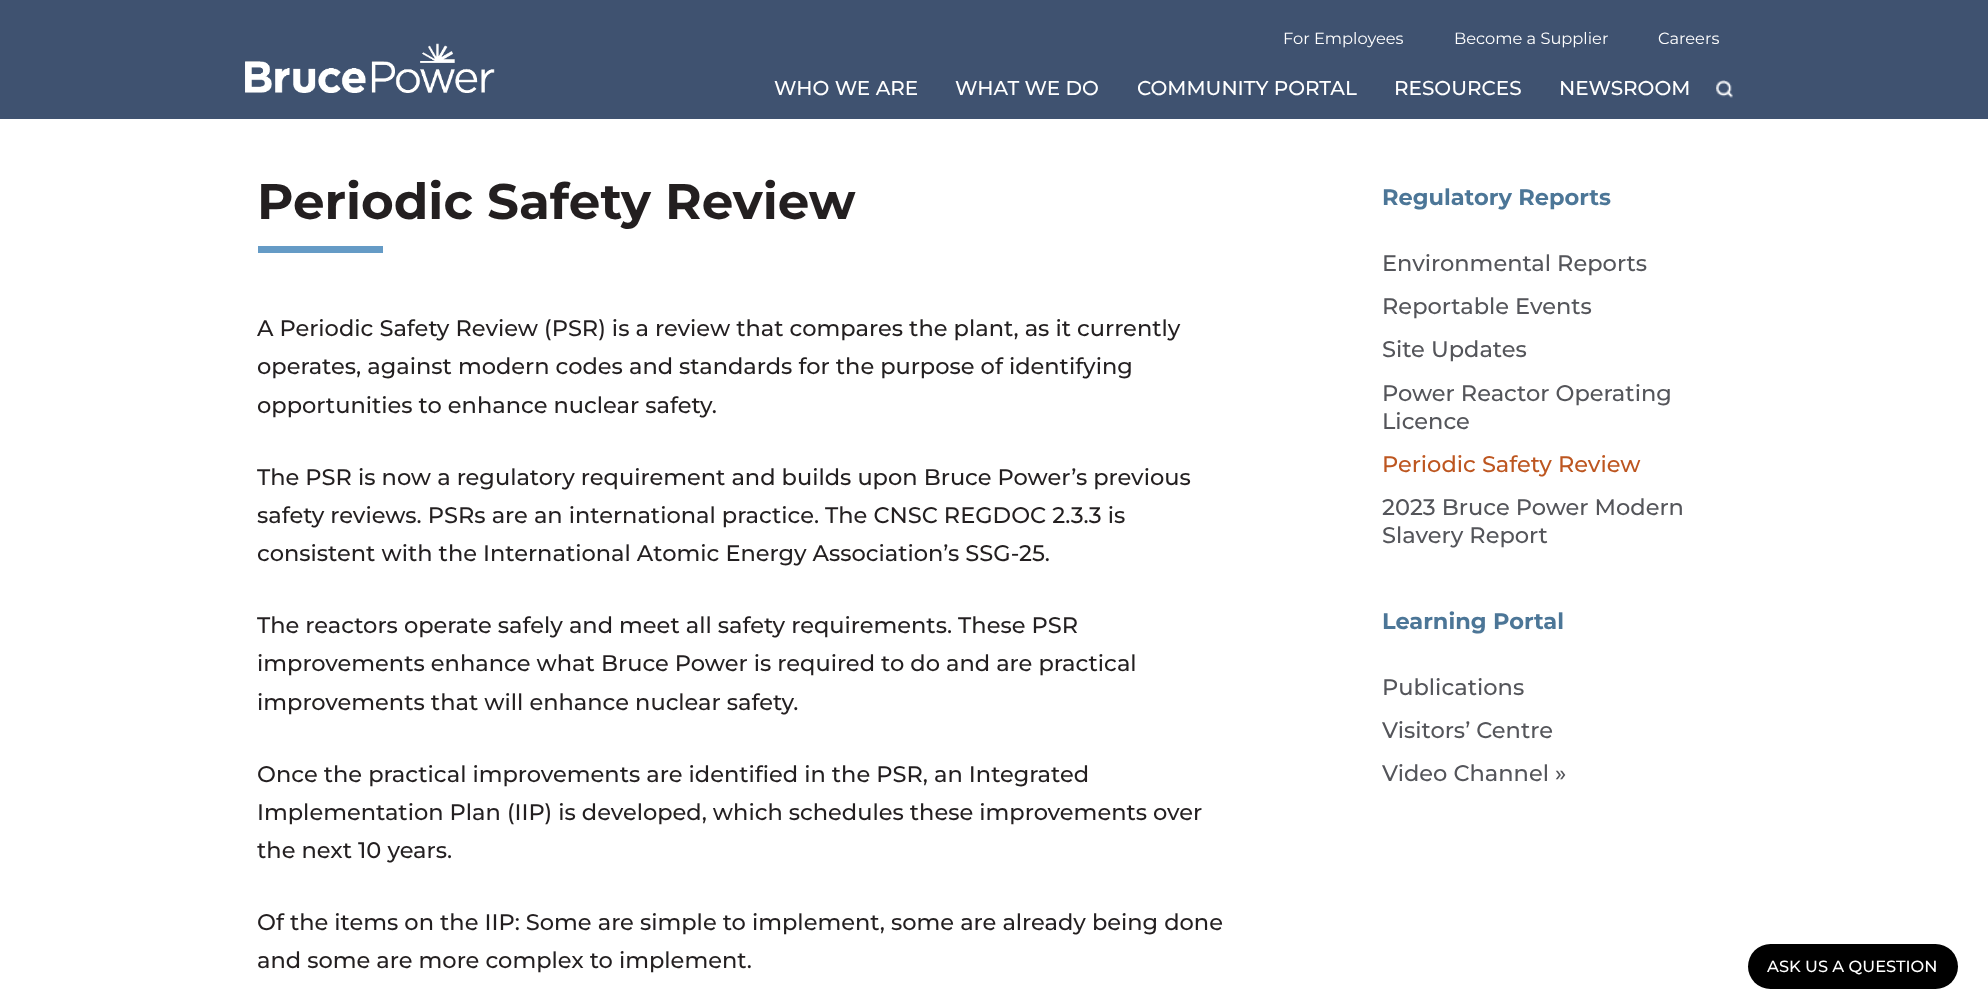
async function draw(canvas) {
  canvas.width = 1988;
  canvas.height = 1007;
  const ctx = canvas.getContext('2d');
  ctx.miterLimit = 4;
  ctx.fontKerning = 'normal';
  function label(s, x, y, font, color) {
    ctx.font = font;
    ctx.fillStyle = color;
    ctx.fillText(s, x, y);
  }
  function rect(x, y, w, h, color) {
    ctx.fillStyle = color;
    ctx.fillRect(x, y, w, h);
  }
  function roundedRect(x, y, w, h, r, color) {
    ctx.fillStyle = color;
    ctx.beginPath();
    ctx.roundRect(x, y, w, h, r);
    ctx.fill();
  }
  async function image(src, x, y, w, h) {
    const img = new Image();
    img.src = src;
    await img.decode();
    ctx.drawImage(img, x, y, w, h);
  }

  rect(0, 0, 1988, 1007, '#fff');
  rect(0, 0, 1988, 119, '#3f5270');
  label('For Employees', 1283, 44, '16.25px Montserrat', '#fff');
  label('Become a Supplier', 1454, 44, '16.25px Montserrat', '#fff');
  label('Careers', 1658, 44, '16.25px Montserrat', '#fff');
  await image('assets/img1.png', 245, 43, 250, 50);
  label('WHO WE ARE', 774, 95, '500 20px Montserrat', '#fff');
  label('WHAT WE DO', 955, 95, '500 20px Montserrat', '#fff');
  label('COMMUNITY PORTAL', 1137, 95, '500 20px Montserrat', '#fff');
  label('RESOURCES', 1394, 95, '500 20px Montserrat', '#fff');
  label('NEWSROOM', 1559, 95, '500 20px Montserrat', '#fff');
  await image('assets/img2.png', 1716, 80, 17, 18);
  label('Periodic Safety Review', 257, 219, 'bold 50px Montserrat', '#231f20');
  rect(258, 246, 125, 7, '#659bc6');
  label('A Periodic Safety Review (PSR) is a review that compares the plant, as it currently', 257, 336, '500 22.5px Montserrat', '#231f20');
  label('operates, against modern codes and standards for the purpose of identifying', 257, 374, '500 22.5px Montserrat', '#231f20');
  label('opportunities to enhance nuclear safety.', 257, 413, '500 22.5px Montserrat', '#231f20');
  label('The PSR is now a regulatory requirement and builds upon Bruce Power’s previous', 257, 485, '500 22.5px Montserrat', '#231f20');
  label('safety reviews. PSRs are an international practice. The CNSC REGDOC 2.3.3 is', 257, 523, '500 22.5px Montserrat', '#231f20');
  label('consistent with the International Atomic Energy Association’s SSG-25.', 257, 561, '500 22.5px Montserrat', '#231f20');
  label('The reactors operate safely and meet all safety requirements. These PSR', 257, 633, '500 22.5px Montserrat', '#231f20');
  label('improvements enhance what Bruce Power is required to do and are practical', 257, 671, '500 22.5px Montserrat', '#231f20');
  label('improvements that will enhance nuclear safety.', 257, 710, '500 22.5px Montserrat', '#231f20');
  label('Once the practical improvements are identified in the PSR, an Integrated', 257, 782, '500 22.5px Montserrat', '#231f20');
  label('Implementation Plan (IIP) is developed, which schedules these improvements over', 257, 820, '500 22.5px Montserrat', '#231f20');
  label('the next 10 years.', 257, 858, '500 22.5px Montserrat', '#231f20');
  label('Of the items on the IIP: Some are simple to implement, some are already being done', 257, 930, '500 22.5px Montserrat', '#231f20');
  label('and some are more complex to implement.', 257, 968, '500 22.5px Montserrat', '#231f20');
  label('Regulatory Reports', 1382, 205, 'bold 22.5px Montserrat', '#4c7697');
  label('Environmental Reports', 1382, 271, '500 22.5px Montserrat', '#54555a');
  label('Reportable Events', 1382, 314, '500 22.5px Montserrat', '#54555a');
  label('Site Updates', 1382, 357, '500 22.5px Montserrat', '#54555a');
  label('Power Reactor Operating', 1382, 401, '500 22.5px Montserrat', '#54555a');
  label('Licence', 1382, 429, '500 22.5px Montserrat', '#54555a');
  label('Periodic Safety Review', 1382, 472, '500 22.5px Montserrat', '#bd5620');
  label('2023 Bruce Power Modern', 1382, 515, '500 22.5px Montserrat', '#54555a');
  label('Slavery Report', 1382, 543, '500 22.5px Montserrat', '#54555a');
  label('Learning Portal', 1382, 629, 'bold 22.5px Montserrat', '#4c7697');
  label('Publications', 1382, 695, '500 22.5px Montserrat', '#54555a');
  label('Visitors’ Centre', 1382, 738, '500 22.5px Montserrat', '#54555a');
  label('Video Channel »', 1382, 781, '500 22.5px Montserrat', '#54555a');
  roundedRect(1748, 944, 210, 45, 22.5, '#000');
  label('ASK US A QUESTION', 1767, 972, '500 16.25px Montserrat', '#fff');
}

draw(document.querySelector('canvas'));
